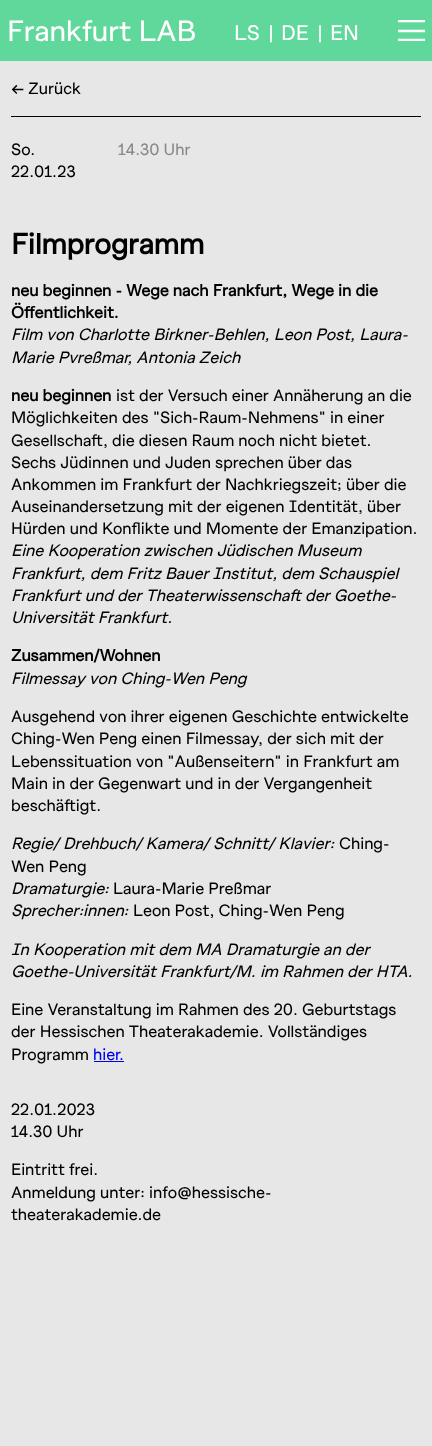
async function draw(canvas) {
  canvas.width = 432;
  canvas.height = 1446;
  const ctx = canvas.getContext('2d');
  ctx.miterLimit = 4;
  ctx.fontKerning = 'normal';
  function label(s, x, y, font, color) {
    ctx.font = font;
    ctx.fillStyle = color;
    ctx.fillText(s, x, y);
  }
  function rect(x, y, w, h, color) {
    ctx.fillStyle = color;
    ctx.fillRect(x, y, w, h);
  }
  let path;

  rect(0, 0, 432, 1446, '#e7e7e7');
  rect(0, 0, 432, 61, '#61d89b');
  label('Frankfurt LAB', 7, 41, '29.25px "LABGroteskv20"', '#fff');
  label('LS', 234, 40, '21px "LABGroteskv20"', '#fff');
  label('|', 268, 40, '20px "LABGroteskv20"', '#fff');
  label('DE', 281, 40, '21px "LABGroteskv20"', '#fff');
  label('|', 317, 40, '20px "LABGroteskv20"', '#fff');
  label('EN', 330, 40, '21px "LABGroteskv20"', '#fff');
  ctx.save();
  ctx.beginPath();
  ctx.rect(398, 20, 27, 21);
  ctx.clip();
  path = new Path2D('M397.5 21H425M397.5 31H425M397.5 40H425');
  ctx.strokeStyle = '#fff';
  ctx.lineWidth = 2.5;
  ctx.stroke(path);
  ctx.restore();
  rect(11, 116, 410, 1, '#000');
  label('← Zurück', 11, 94, '16.4px "LABGroteskv20"', '#000');
  label('So.', 11, 155, '16.4px "LABGroteskv20"', '#000');
  label('22.01.23', 11, 177, '16.4px "LABGroteskv20"', '#000');
  label('14.30 Uhr', 118, 155, '16.4px "LABGroteskv20"', '#898989');
  label('Filmprogramm', 11, 254, 'bold 29.25px "LABGroteskv20"', '#000');
  label('neu beginnen - Wege nach Frankfurt, Wege in die', 11, 296, 'bold 16.4px "LABGroteskv20"', '#000');
  label('Öffentlichkeit.', 11, 318, 'bold 16.4px "LABGroteskv20"', '#000');
  label('Film von Charlotte Birkner-Behlen, Leon Post, Laura-', 11, 340, 'italic 16.4px "LABGroteskv20"', '#000');
  label('Marie Pvreßmar, Antonia Zeich', 11, 363, 'italic 16.4px "LABGroteskv20"', '#000');
  label('neu beginnen', 11, 401, 'bold 16.4px "LABGroteskv20"', '#000');
  label('ist der Versuch einer Annäherung an die', 116, 401, '16.4px "LABGroteskv20"', '#000');
  label('Möglichkeiten des "Sich-Raum-Nehmens" in einer', 11, 423, '16.4px "LABGroteskv20"', '#000');
  label('Gesellschaft, die diesen Raum noch nicht bietet.', 11, 446, '16.4px "LABGroteskv20"', '#000');
  label('Sechs Jüdinnen und Juden sprechen über das', 11, 468, '16.4px "LABGroteskv20"', '#000');
  label('Ankommen im Frankfurt der Nachkriegszeit; über die', 11, 490, '16.4px "LABGroteskv20"', '#000');
  label('Auseinandersetzung mit der eigenen Identität, über', 11, 512, '16.4px "LABGroteskv20"', '#000');
  label('Hürden und Konflikte und Momente der Emanzipation.', 11, 534, '16.4px "LABGroteskv20"', '#000');
  label('Eine Kooperation zwischen Jüdischen Museum', 11, 556, 'italic 16.4px "LABGroteskv20"', '#000');
  label('Frankfurt, dem Fritz Bauer Institut, dem Schauspiel', 11, 579, 'italic 16.4px "LABGroteskv20"', '#000');
  label('Frankfurt und der Theaterwissenschaft der Goethe-', 11, 601, 'italic 16.4px "LABGroteskv20"', '#000');
  label('Universität Frankfurt.', 11, 623, 'italic 16.4px "LABGroteskv20"', '#000');
  label('Zusammen/Wohnen', 11, 661, 'bold 16.4px "LABGroteskv20"', '#000');
  label('Filmessay von Ching-Wen Peng', 11, 684, 'italic 16.4px "LABGroteskv20"', '#000');
  label('Ausgehend von ihrer eigenen Geschichte entwickelte', 11, 722, '16.4px "LABGroteskv20"', '#000');
  label('Ching-Wen Peng einen Filmessay, der sich mit der', 11, 744, '16.4px "LABGroteskv20"', '#000');
  label('Lebenssituation von "Außenseitern" in Frankfurt am', 11, 767, '16.4px "LABGroteskv20"', '#000');
  label('Main in der Gegenwart und in der Vergangenheit', 11, 789, '16.4px "LABGroteskv20"', '#000');
  label('beschäftigt.', 11, 811, '16.4px "LABGroteskv20"', '#000');
  label('Regie/ Drehbuch/ Kamera/ Schnitt/ Klavier:', 11, 849, 'italic 16.4px "LABGroteskv20"', '#000');
  label('Ching-', 339, 849, '16.4px "LABGroteskv20"', '#000');
  label('Wen Peng', 11, 872, '16.4px "LABGroteskv20"', '#000');
  label('Dramaturgie:', 11, 894, 'italic 16.4px "LABGroteskv20"', '#000');
  label('Laura-Marie Preßmar', 113, 894, '16.4px "LABGroteskv20"', '#000');
  label('Sprecher:innen:', 11, 916, 'italic 16.4px "LABGroteskv20"', '#000');
  label('Leon Post, Ching-Wen Peng', 133, 916, '16.4px "LABGroteskv20"', '#000');
  label('In Kooperation mit dem MA Dramaturgie an der', 11, 955, 'italic 16.4px "LABGroteskv20"', '#000');
  label('Goethe-Universität Frankfurt/M. im Rahmen der HTA.', 11, 977, 'italic 16.4px "LABGroteskv20"', '#000');
  label('Eine Veranstaltung im Rahmen des 20. Geburtstags', 11, 1015, '16.4px "LABGroteskv20"', '#000');
  label('der Hessischen Theaterakademie. Vollständiges', 11, 1037, '16.4px "LABGroteskv20"', '#000');
  label('Programm', 11, 1060, '16.4px "LABGroteskv20"', '#000');
  label('hier.', 93, 1060, '16.4px "LABGroteskv20"', '#00e');
  rect(94, 1061, 30, 1, '#00e');
  label('22.01.2023', 11, 1115, '16.4px "LABGroteskv20"', '#000');
  label('14.30 Uhr', 11, 1137, '16.4px "LABGroteskv20"', '#000');
  label('Eintritt frei.', 11, 1175, '16.4px "LABGroteskv20"', '#000');
  label('Anmeldung unter: info@hessische-', 11, 1198, '16.4px "LABGroteskv20"', '#000');
  label('theaterakademie.de', 11, 1220, '16.4px "LABGroteskv20"', '#000');
}

draw(document.querySelector('canvas'));
